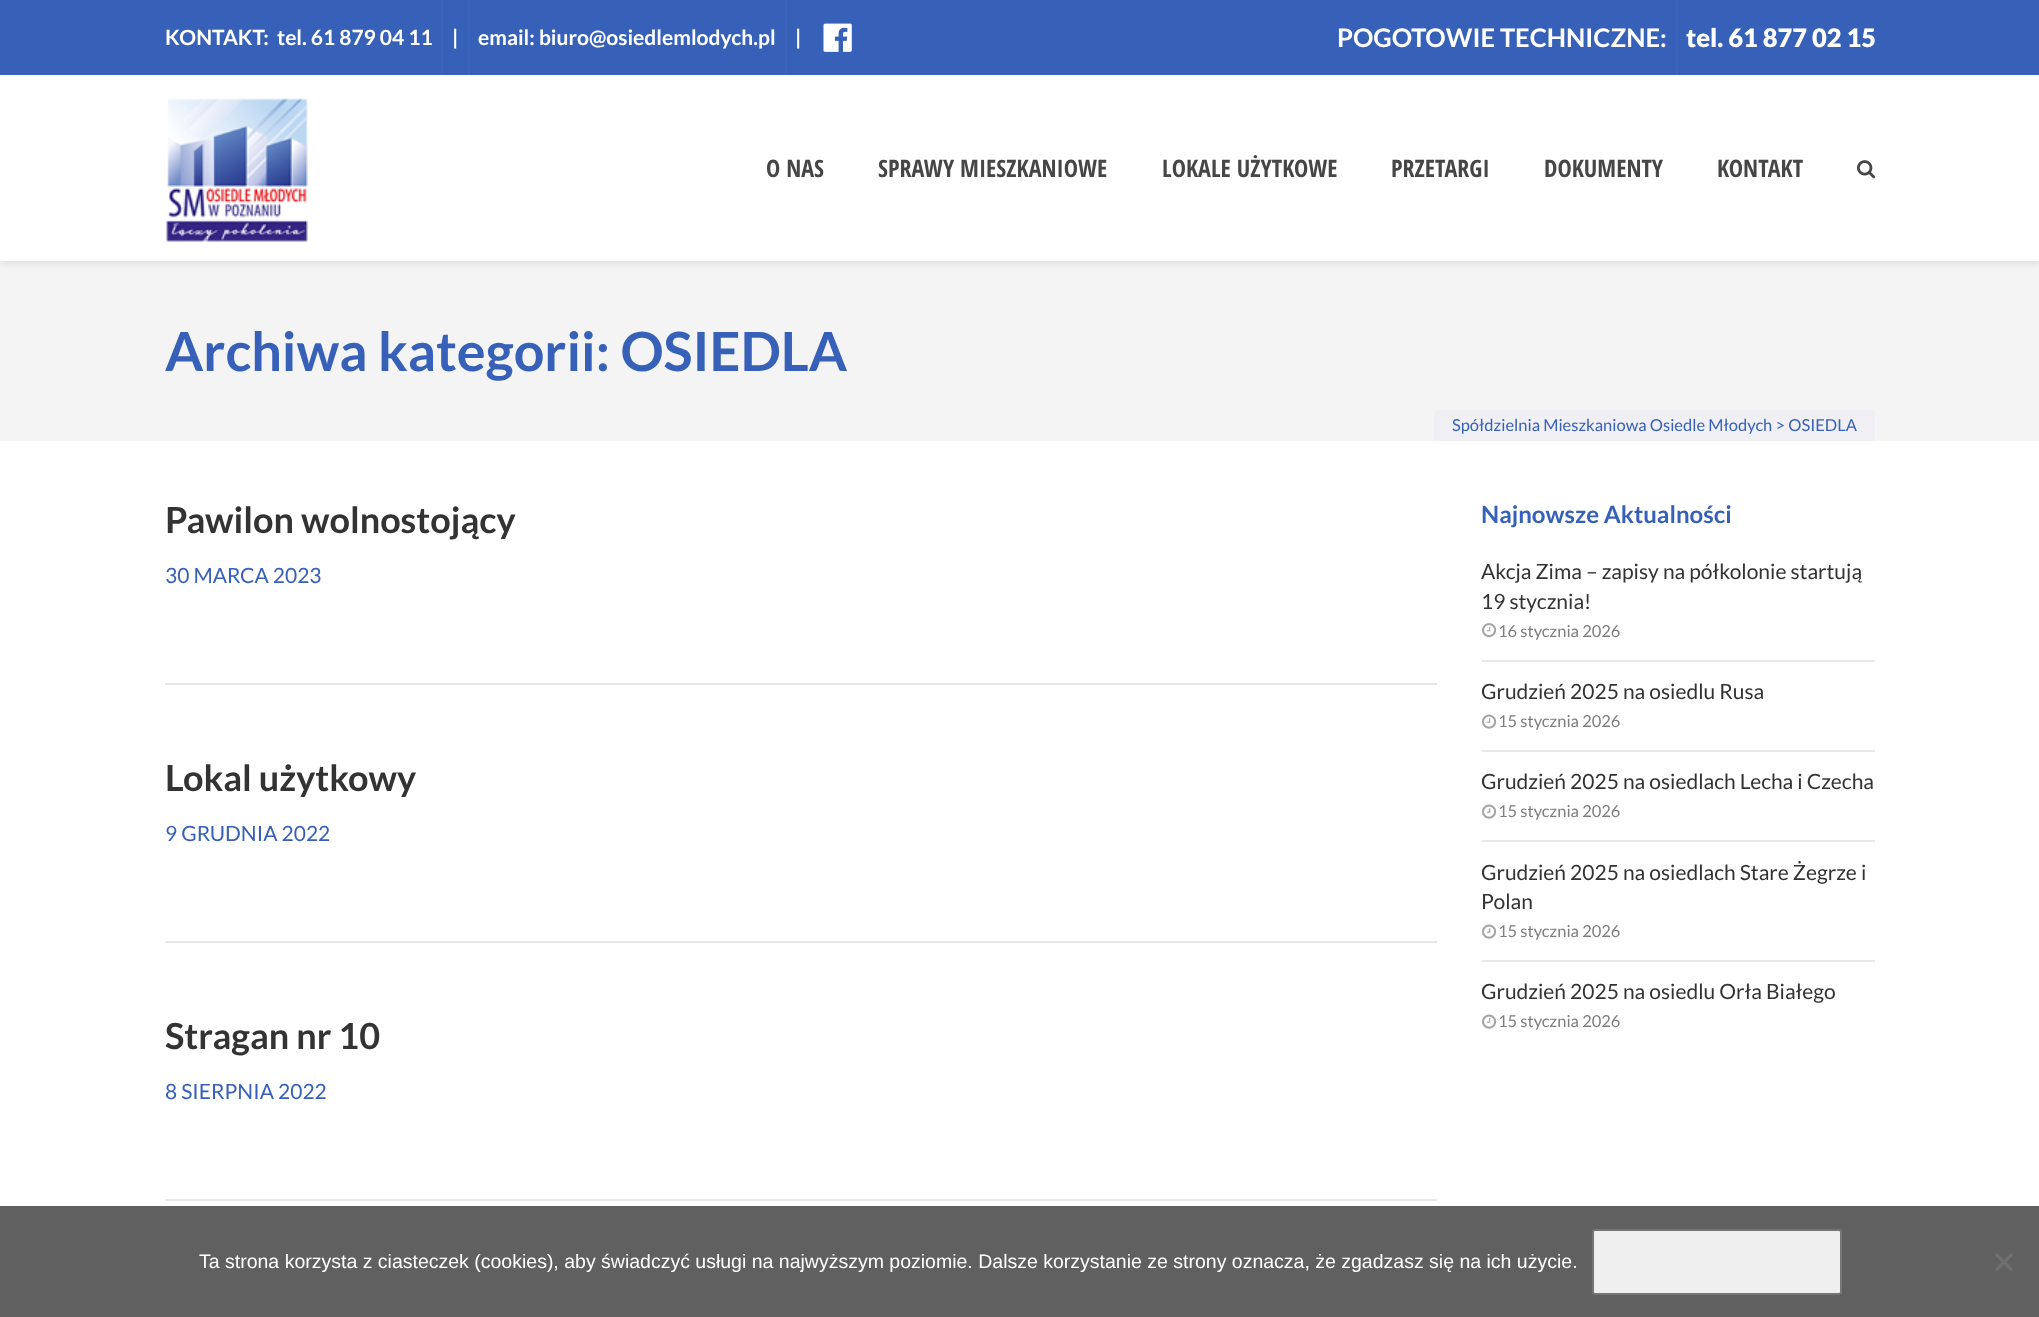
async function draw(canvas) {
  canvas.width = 2039;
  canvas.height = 1317;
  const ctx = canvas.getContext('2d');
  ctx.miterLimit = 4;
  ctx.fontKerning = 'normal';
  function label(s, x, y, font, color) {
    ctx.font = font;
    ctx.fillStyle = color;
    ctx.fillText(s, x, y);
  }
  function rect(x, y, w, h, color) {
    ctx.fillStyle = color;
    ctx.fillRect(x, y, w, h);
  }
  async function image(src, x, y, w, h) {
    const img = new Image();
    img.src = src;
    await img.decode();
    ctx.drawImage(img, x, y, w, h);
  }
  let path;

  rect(0, 0, 2039, 1317, '#fff');
  rect(0, 0, 2039, 74, '#3761b8');
  rect(0, 74, 2039, 1, '#3963b9');
  label('KONTAKT:  tel. 61 879 04 11', 165, 45, 'bold 21px Lato', '#fff');
  rect(441, 0, 2, 75, '#3b65ba');
  label('|', 452, 45, 'bold 21px Lato', '#fff');
  rect(468, 0, 2, 75, '#3b65ba');
  label('email: biuro@osiedlemlodych.pl', 478, 45, 'bold 21px Lato', '#fff');
  rect(785, 0, 2, 75, '#3b65ba');
  label('|', 795, 45, 'bold 21px Lato', '#fff');
  await image('assets/img1.png', 823, 23, 29, 29);
  label('POGOTOWIE TECHNICZNE:', 1337, 47, 'bold 25.5px Lato', '#fff');
  rect(1676, 0, 2, 75, '#3b65ba');
  label('tel. 61 877 02 15', 1686, 47, '900 25.5px Lato', '#fff');
  await image('assets/img2.png', 166, 98, 142, 144);
  label('O NAS', 766, 177, 'bold 24px Open Sans Condensed', '#464646');
  label('SPRAWY MIESZKANIOWE', 878, 177, 'bold 24px Open Sans Condensed', '#464646');
  label('LOKALE UŻYTKOWE', 1162, 177, 'bold 24px Open Sans Condensed', '#464646');
  label('PRZETARGI', 1391, 177, 'bold 24px Open Sans Condensed', '#464646');
  label('DOKUMENTY', 1544, 177, 'bold 24px Open Sans Condensed', '#464646');
  label('KONTAKT', 1717, 177, 'bold 24px Open Sans Condensed', '#464646');
  await image('assets/img3.png', 1857, 160, 19, 19);
  rect(0, 261, 2039, 180, '#f4f4f4');
  ctx.save();
  ctx.beginPath();
  ctx.rect(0, 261, 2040, 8);
  ctx.clip();
  ctx.fillStyle = '#0000001a';
  ctx.filter = 'blur(3px)';
  ctx.beginPath();
  ctx.roundRect(0, 255, 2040, 8, 4);
  ctx.fill();
  ctx.filter = 'none';
  ctx.restore();
  label('Archiwa kategorii: OSIEDLA', 165, 371, 'bold 54px Lato', '#3761b8');
  ctx.fillStyle = '#f0f0f4';
  ctx.beginPath();
  ctx.roundRect(1434, 410, 441, 31, [3, 3, 0, 0]);
  ctx.fill();
  label('Spółdzielnia Mieszkaniowa Osiedle Młodych > OSIEDLA', 1452, 431, '16.5px Lato', '#3761b8');
  rect(165, 683, 1272, 2, '#e8e8e8');
  label('Pawilon wolnostojący', 165, 533, 'bold 36px Lato', '#333');
  label('30 MARCA 2023', 165, 583, '21px Lato', '#3761b8');
  rect(165, 941, 1272, 2, '#e8e8e8');
  label('Lokal użytkowy', 165, 791, 'bold 36px Lato', '#333');
  label('9 GRUDNIA 2022', 165, 841, '21px Lato', '#3761b8');
  rect(165, 1199, 1272, 2, '#e8e8e8');
  label('Stragan nr 10', 165, 1049, 'bold 36px Lato', '#333');
  label('8 SIERPNIA 2022', 165, 1099, '21px Lato', '#3761b8');
  label('Najnowsze Aktualności', 1481, 523, 'bold 24px Lato', '#3761b8');
  rect(1482, 660, 393, 2, '#e8e8e8');
  label('Akcja Zima – zapisy na półkolonie startują', 1481, 579, '21px Lato', '#333');
  label('19 stycznia!', 1481, 609, '21px Lato', '#333');
  await image('assets/img4.png', 1482, 623, 15, 15);
  label('16 stycznia 2026', 1498, 637, '16.5px Lato', '#7e7e7e');
  rect(1482, 750, 393, 2, '#e8e8e8');
  label('Grudzień 2025 na osiedlu Rusa', 1481, 699, '21px Lato', '#333');
  await image('assets/img5.png', 1482, 714, 15, 15);
  label('15 stycznia 2026', 1498, 727, '16.5px Lato', '#7e7e7e');
  rect(1482, 840, 393, 2, '#e8e8e8');
  label('Grudzień 2025 na osiedlach Lecha i Czecha', 1481, 789, '21px Lato', '#333');
  await image('assets/img5.png', 1482, 804, 15, 15);
  label('15 stycznia 2026', 1498, 817, '16.5px Lato', '#7e7e7e');
  rect(1482, 960, 393, 2, '#e8e8e8');
  label('Grudzień 2025 na osiedlach Stare Żegrze i', 1481, 880, '21px Lato', '#333');
  label('Polan', 1481, 909, '21px Lato', '#333');
  await image('assets/img5.png', 1482, 924, 15, 15);
  label('15 stycznia 2026', 1498, 937, '16.5px Lato', '#7e7e7e');
  label('Grudzień 2025 na osiedlu Orła Białego', 1481, 999, '21px Lato', '#333');
  await image('assets/img5.png', 1482, 1014, 15, 15);
  label('15 stycznia 2026', 1498, 1027, '16.5px Lato', '#7e7e7e');
  rect(0, 1206, 2039, 111, '#606060');
  label('Ta strona korzysta z ciasteczek (cookies), aby świadczyć usługi na najwyższym poziomie. Dalsze korzystanie ze strony oznacza, że zgadzasz się na ich użycie.', 199, 1268, '19.5px Liberation Sans', '#fff');
  ctx.fillStyle = '#efefef';
  ctx.beginPath();
  ctx.roundRect(1593, 1230, 248, 64, 2);
  ctx.fill();
  ctx.strokeStyle = '#767676';
  ctx.lineWidth = 2;
  ctx.stroke();
  ctx.fillStyle = '#707070';
  path = new Path2D('M2011 1253L2013 1255.5L1997 1271.5L1995 1269Z');
  ctx.fill(path);
  path = new Path2D('M1995 1255.5L1997 1253L2013 1269L2011 1271.5Z');
  ctx.fill(path);
}

draw(document.querySelector('canvas'));
